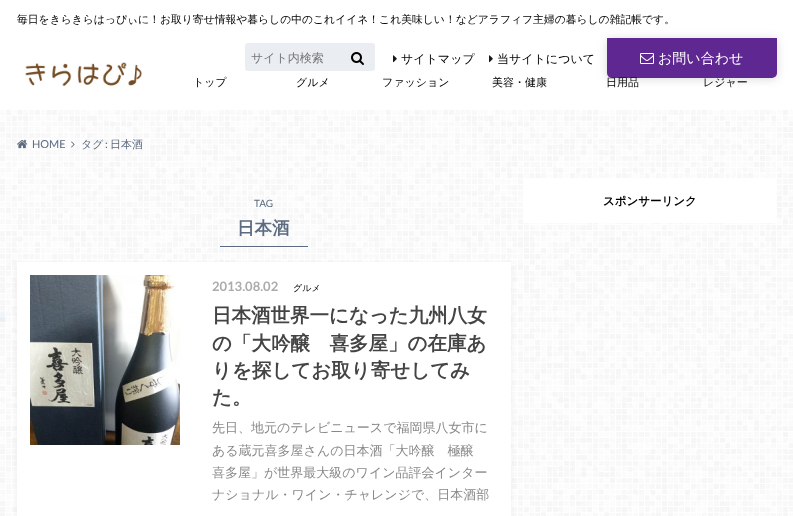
async function draw(canvas) {
  canvas.width = 793;
  canvas.height = 516;
  const ctx = canvas.getContext('2d');
  ctx.miterLimit = 4;
  ctx.fontKerning = 'normal';
  function label(s, x, y, font, color) {
    ctx.font = font;
    ctx.fillStyle = color;
    ctx.fillText(s, x, y);
  }
  function rect(x, y, w, h, color) {
    ctx.fillStyle = color;
    ctx.fillRect(x, y, w, h);
  }
  function roundedRect(x, y, w, h, r, color) {
    ctx.fillStyle = color;
    ctx.beginPath();
    ctx.roundRect(x, y, w, h, r);
    ctx.fill();
  }
  async function image(src, x, y, w, h) {
    const img = new Image();
    img.src = src;
    await img.decode();
    ctx.drawImage(img, x, y, w, h);
  }

  rect(0, 0, 793, 516, '#fff');
  await image('assets/img1.png', 0, 110, 793, 406);
  label('毎日をきらきらはっぴぃに！お取り寄せ情報や暮らしの中のこれイイネ！これ美味しい！などアラフィフ主婦の暮らしの雑記帳です。', 17, 23, '500 10.8px WenQuanYi Zen Hei', '#000');
  roundedRect(245, 43, 130, 28, 3, '#eaedf2');
  label('サイト内検索', 251, 62, '500 12px WenQuanYi Zen Hei', '#757575');
  await image('assets/img2.png', 351, 52, 13, 13);
  await image('assets/img3.png', 393, 55, 4, 8);
  label('サイトマップ', 401, 63, '500 12px WenQuanYi Zen Hei', '#000');
  await image('assets/img3.png', 489, 55, 4, 8);
  label('当サイトについて', 497, 63, '500 12px WenQuanYi Zen Hei', '#000');
  ctx.fillStyle = '#3b3b3b33';
  ctx.filter = 'blur(5px)';
  ctx.beginPath();
  ctx.roundRect(607, 39, 170, 40, 5);
  ctx.fill();
  ctx.filter = 'none';
  ctx.fillStyle = '#5e2791';
  ctx.beginPath();
  ctx.roundRect(607, 38, 170, 40, [0, 0, 5, 5]);
  ctx.fill();
  await image('assets/img4.png', 640, 53, 14, 11);
  label('お問い合わせ', 658, 63, '500 14px WenQuanYi Zen Hei', '#fff');
  await image('assets/img5.png', 25, 62, 117, 25);
  label('トップ', 193, 86, '500 11px WenQuanYi Zen Hei', '#000');
  label('グルメ', 296, 86, '500 11px WenQuanYi Zen Hei', '#000');
  label('ファッション', 382, 86, '500 11px WenQuanYi Zen Hei', '#000');
  label('美容・健康', 492, 86, '500 11px WenQuanYi Zen Hei', '#000');
  label('日用品', 606, 86, '500 11px WenQuanYi Zen Hei', '#000');
  label('レジャー', 703, 86, '500 11px WenQuanYi Zen Hei', '#000');
  await image('assets/img6.png', 17, 139, 11, 10);
  label('HOME', 32, 148, '11px Lato', '#5c6b80');
  await image('assets/img7.png', 71, 141, 4, 7);
  label('タグ', 81, 148, '500 11px WenQuanYi Zen Hei', '#5c6b80');
  label(':', 105, 148, '11px Lato', '#5c6b80');
  label('日本酒', 110, 148, '500 11px WenQuanYi Zen Hei', '#5c6b80');
  rect(220, 246, 88, 1, '#5c6b80');
  label('TAG', 254, 207, '10px Lato', '#5c6b80');
  label('日本酒', 237, 234, 'bold 17.5px WenQuanYi Zen Hei', '#5c6b80');
  ctx.fillStyle = '#8a8a8a26';
  ctx.filter = 'blur(2.5px)';
  ctx.beginPath();
  ctx.rect(17, 264, 494, 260);
  ctx.fill();
  ctx.filter = 'none';
  rect(17, 262, 494, 254, '#fff');
  await image('assets/img8.png', 30, 275, 150, 170);
  label('2013.08.02', 212, 291, 'bold 13px Lato', '#acacac');
  label('グルメ', 293, 291, '500 9px WenQuanYi Zen Hei', '#000');
  label('日本酒世界一になった九州八女', 212, 322, 'bold 19.5px WenQuanYi Zen Hei', '#444');
  label('の「大吟醸　喜多屋」の在庫あ', 212, 350, 'bold 19.5px WenQuanYi Zen Hei', '#444');
  label('りを探してお取り寄せしてみ', 212, 377, 'bold 19.5px WenQuanYi Zen Hei', '#444');
  label('た。', 212, 404, 'bold 19.5px WenQuanYi Zen Hei', '#444');
  label('先日、地元のテレビニュースで福岡県八女市に', 212, 432, '500 13px WenQuanYi Zen Hei', '#888');
  label('ある蔵元喜多屋さんの日本酒「大吟醸　極醸', 212, 455, '500 13px WenQuanYi Zen Hei', '#888');
  label('喜多屋」が世界最大級のワイン品評会インター', 212, 477, '500 13px WenQuanYi Zen Hei', '#888');
  label('ナショナル・ワイン・チャレンジで、日本酒部', 212, 499, '500 13px WenQuanYi Zen Hei', '#888');
  rect(524, 178, 252, 45, '#fff');
  label('スポンサーリンク', 603, 205, 'bold 11.5px WenQuanYi Zen Hei', '#000');
}

draw(document.querySelector('canvas'));
